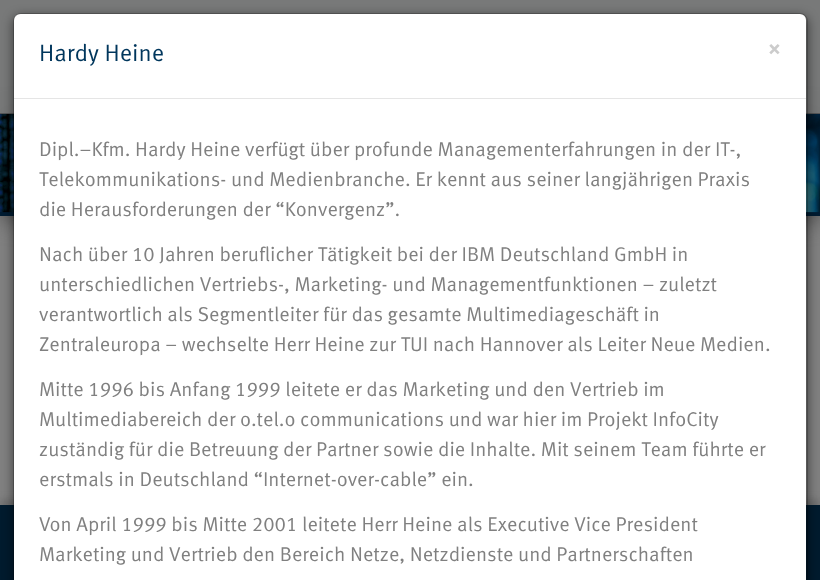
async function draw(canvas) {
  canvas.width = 820;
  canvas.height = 580;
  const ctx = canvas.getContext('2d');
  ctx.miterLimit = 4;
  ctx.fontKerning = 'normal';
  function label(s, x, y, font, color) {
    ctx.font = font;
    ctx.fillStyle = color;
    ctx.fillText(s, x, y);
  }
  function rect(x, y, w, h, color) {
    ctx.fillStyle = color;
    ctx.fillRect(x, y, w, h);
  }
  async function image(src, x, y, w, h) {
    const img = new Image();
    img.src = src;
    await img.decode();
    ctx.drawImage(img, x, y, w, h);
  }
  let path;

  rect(0, 0, 820, 580, '#808080');
  ctx.save();
  path = new Path2D('M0 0H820V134H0ZM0 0H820V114H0Z');
  ctx.clip(path, 'evenodd');
  ctx.fillStyle = '#404040e6';
  ctx.filter = 'blur(6px)';
  ctx.beginPath();
  ctx.rect(1, 1, 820, 114);
  ctx.fill();
  ctx.filter = 'none';
  ctx.restore();
  ctx.fillStyle = '#404040';
  ctx.filter = 'blur(12.5px)';
  ctx.beginPath();
  ctx.rect(1, 115, 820, 103);
  ctx.fill();
  ctx.filter = 'none';
  rect(0, 0, 820, 113, '#777878e6');
  rect(0, 113, 820, 1, '#525253e6');
  await image('assets/img1.png', 0, 114, 820, 102);
  ctx.fillStyle = '#6f6f6f';
  ctx.filter = 'blur(3px)';
  ctx.beginPath();
  ctx.rect(0, 499, 820, 75);
  ctx.fill();
  ctx.filter = 'none';
  rect(0, 505, 820, 75, '#001b2e');
  ctx.fillStyle = '#00000080';
  ctx.filter = 'blur(5.5px)';
  ctx.beginPath();
  ctx.roundRect(13, 16, 795, 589, 8);
  ctx.fill();
  ctx.filter = 'none';
  ctx.fillStyle = '#fff';
  ctx.beginPath();
  ctx.roundRect(14, 14, 792, 566, [6, 6, 0, 0]);
  ctx.fill();
  ctx.beginPath();
  ctx.roundRect(13.5, 13.5, 794, 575, 7.5);
  ctx.strokeStyle = '#00000033';
  ctx.stroke();
  rect(14, 98, 792, 1, '#e5e5e5');
  label('Hardy Heine', 39, 61, '23.75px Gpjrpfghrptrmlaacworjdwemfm', '#00365c');
  label('×', 767, 56, 'bold 26px Gpjrpfghrptrmlaacworjdwemfm', '#ccc');
  label('Dipl.–Kfm. Hardy Heine verfügt über profunde Managementerfahrungen in der IT-,', 39, 156, '20px Gpjrpfghrptrmlaacworjdwemfm', '#808080');
  label('Telekommunikations- und Medienbranche. Er kennt aus seiner langjährigen Praxis', 39, 186, '20px Gpjrpfghrptrmlaacworjdwemfm', '#808080');
  label('die Herausforderungen der “Konvergenz”.', 39, 216, '20px Gpjrpfghrptrmlaacworjdwemfm', '#808080');
  label('Nach über 10 Jahren beruflicher Tätigkeit bei der IBM Deutschland GmbH in', 39, 261, '20px Gpjrpfghrptrmlaacworjdwemfm', '#808080');
  label('unterschiedlichen Vertriebs-, Marketing- und Managementfunktionen – zuletzt', 39, 291, '20px Gpjrpfghrptrmlaacworjdwemfm', '#808080');
  label('verantwortlich als Segmentleiter für das gesamte Multimediageschäft in', 39, 321, '20px Gpjrpfghrptrmlaacworjdwemfm', '#808080');
  label('Zentraleuropa – wechselte Herr Heine zur TUI nach Hannover als Leiter Neue Medien.', 39, 351, '20px Gpjrpfghrptrmlaacworjdwemfm', '#808080');
  label('Mitte 1996 bis Anfang 1999 leitete er das Marketing und den Vertrieb im', 39, 396, '20px Gpjrpfghrptrmlaacworjdwemfm', '#808080');
  label('Multimediabereich der o.tel.o communications und war hier im Projekt InfoCity', 39, 426, '20px Gpjrpfghrptrmlaacworjdwemfm', '#808080');
  label('zuständig für die Betreuung der Partner sowie die Inhalte. Mit seinem Team führte er', 39, 456, '20px Gpjrpfghrptrmlaacworjdwemfm', '#808080');
  label('erstmals in Deutschland “Internet-over-cable” ein.', 39, 486, '20px Gpjrpfghrptrmlaacworjdwemfm', '#808080');
  label('Von April 1999 bis Mitte 2001 leitete Herr Heine als Executive Vice President', 39, 531, '20px Gpjrpfghrptrmlaacworjdwemfm', '#808080');
  label('Marketing und Vertrieb den Bereich Netze, Netzdienste und Partnerschaften', 39, 561, '20px Gpjrpfghrptrmlaacworjdwemfm', '#808080');
}

draw(document.querySelector('canvas'));
